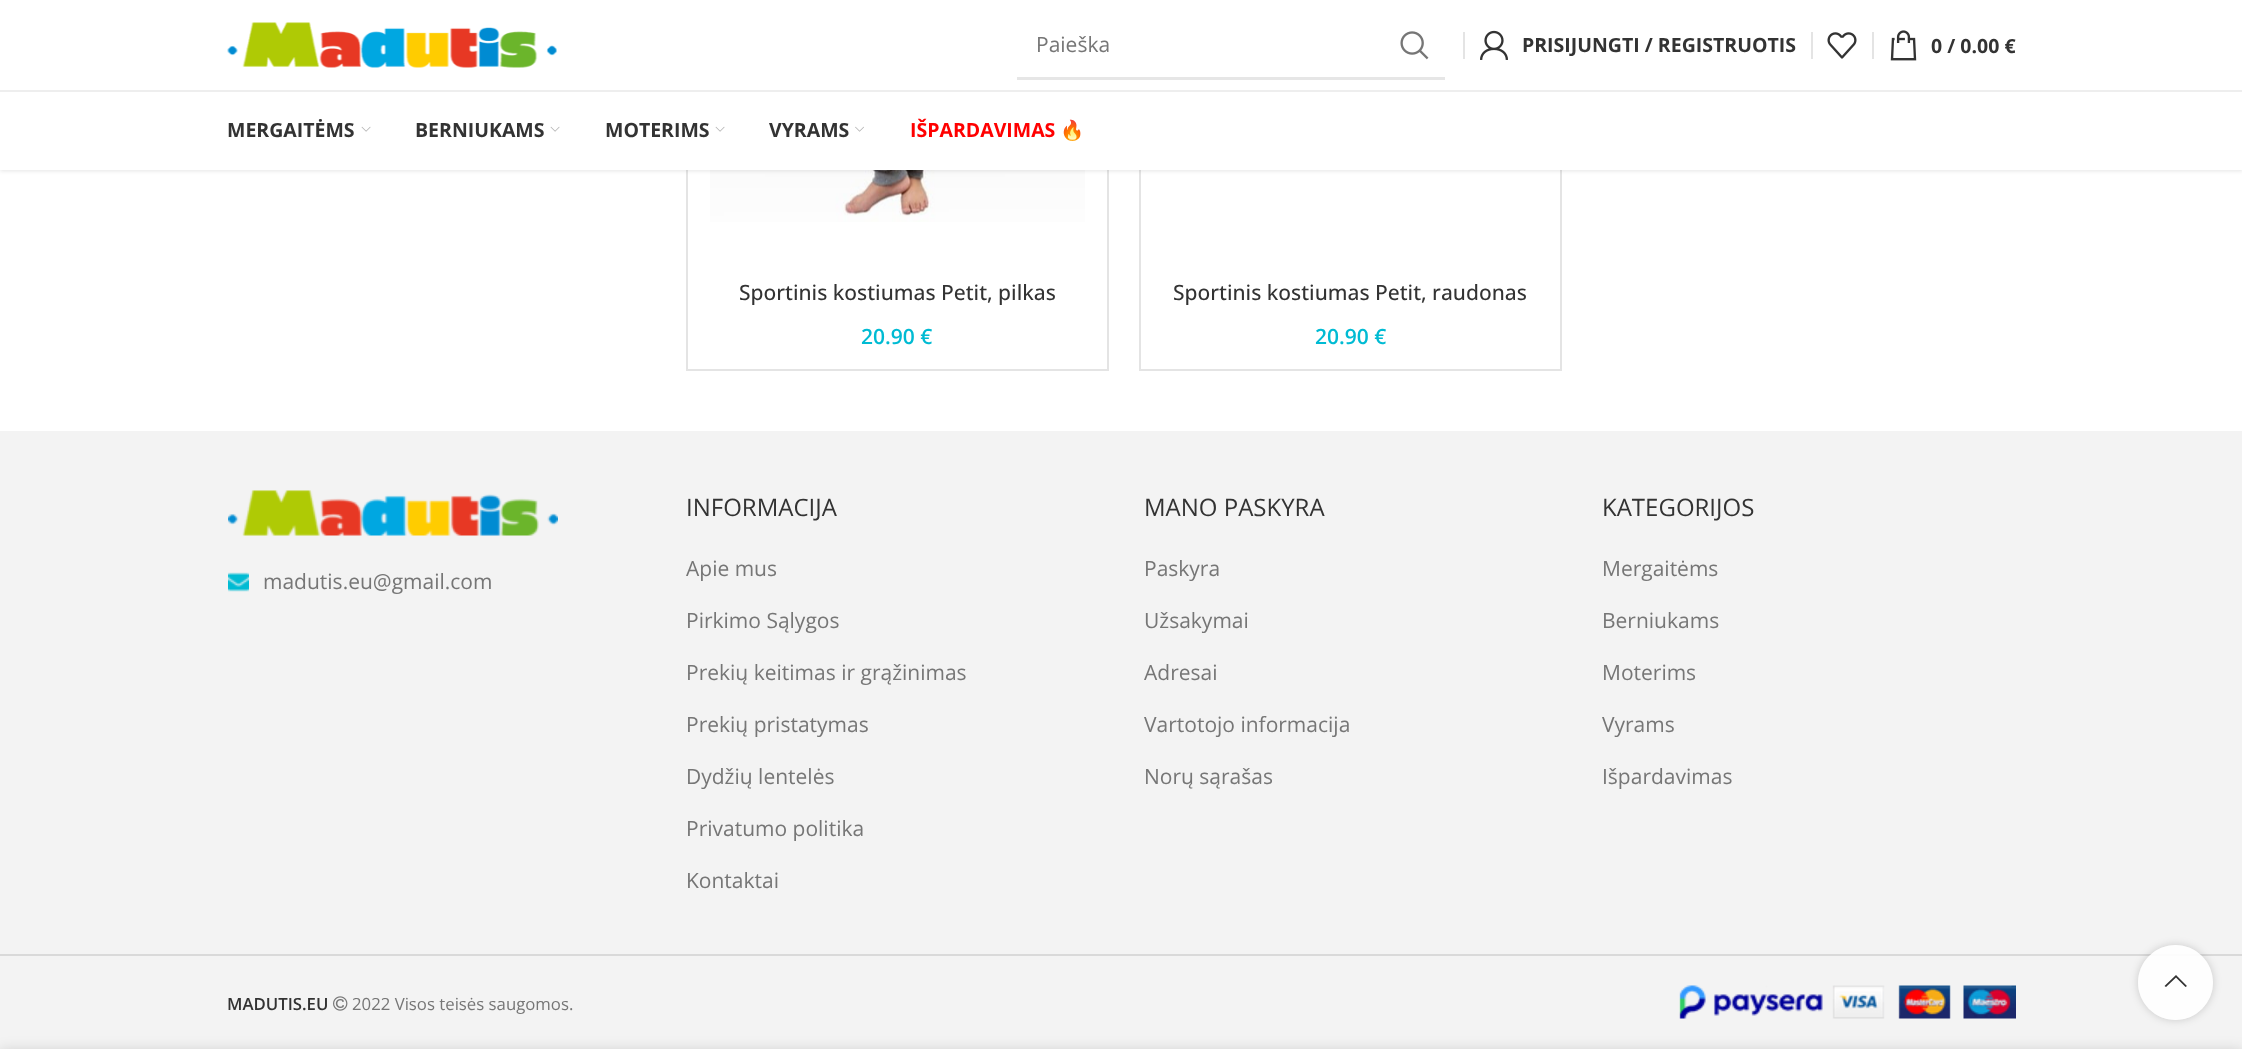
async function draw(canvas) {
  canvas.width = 2242;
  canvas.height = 1049;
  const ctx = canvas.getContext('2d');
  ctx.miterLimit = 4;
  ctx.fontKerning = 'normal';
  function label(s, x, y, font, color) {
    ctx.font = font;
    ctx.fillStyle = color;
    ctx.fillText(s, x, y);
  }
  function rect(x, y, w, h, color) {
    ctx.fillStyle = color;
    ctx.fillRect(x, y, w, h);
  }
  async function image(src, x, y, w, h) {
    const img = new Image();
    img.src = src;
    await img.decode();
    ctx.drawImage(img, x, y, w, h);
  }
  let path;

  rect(0, 0, 2242, 1049, '#fff');
  ctx.strokeStyle = '#e4e4e4';
  ctx.lineWidth = 2;
  ctx.strokeRect(687, -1, 421, 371);
  await image('assets/img8.png', 710, 170, 375, 52);
  ctx.strokeRect(1140, -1, 421, 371);
  ctx.fillStyle = '#0000001a';
  ctx.filter = 'blur(2px)';
  ctx.beginPath();
  ctx.rect(0, 2, 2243, 169);
  ctx.fill();
  ctx.filter = 'none';
  rect(0, 0, 2242, 90, '#fff');
  rect(0, 90, 2242, 2, '#eee');
  await image('assets/img1.png', 227, 22, 330, 46);
  rect(1017, 77, 428, 3, '#e6e6e6');
  label('Paieška', 1036, 52, '21px Open Sans', '#767676');
  await image('assets/img2.png', 1400, 31, 29, 29);
  rect(1463, 32, 2, 27, '#e4e4e4');
  await image('assets/img3.png', 1480, 30, 28, 30);
  label('PRISIJUNGTI / REGISTRUOTIS', 1522, 52, 'bold 19.5px Open Sans', '#333');
  rect(1811, 32, 2, 27, '#e4e4e4');
  await image('assets/img4.png', 1827, 32, 30, 27);
  rect(1872, 32, 2, 27, '#e4e4e4');
  await image('assets/img5.png', 1890, 30, 27, 31);
  label('0 / 0.00 €', 1931, 53, 'bold 19.5px Open Sans', '#333');
  rect(0, 92, 2242, 78, '#fff');
  label('MERGAITĖMS', 227, 137, 'bold 19.5px Open Sans', '#333');
  await image('assets/img6.png', 361, 126, 10, 6);
  label('BERNIUKAMS', 415, 137, 'bold 19.5px Open Sans', '#333');
  await image('assets/img6.png', 550, 126, 10, 6);
  label('MOTERIMS', 605, 137, 'bold 19.5px Open Sans', '#333');
  await image('assets/img6.png', 715, 126, 10, 6);
  label('VYRAMS', 769, 137, 'bold 19.5px Open Sans', '#333');
  await image('assets/img7.png', 855, 126, 9, 6);
  label('IŠPARDAVIMAS', 910, 137, 'bold 19.5px Open Sans', '#f00');
  label('🔥', 1060, 137, 'bold 19.5px Noto Color Emoji', '#f00');
  label('Sportinis kostiumas Petit, pilkas', 739, 300, '500 21px Open Sans', '#333');
  label('20.90 €', 861, 344, '600 21px Open Sans', '#00bbd3');
  label('Sportinis kostiumas Petit, raudonas', 1173, 300, '500 21px Open Sans', '#333');
  label('20.90 €', 1315, 344, '600 21px Open Sans', '#00bbd3');
  rect(0, 431, 2242, 618, '#f3f3f3');
  await image('assets/img9.png', 228, 490, 330, 46);
  await image('assets/img10.png', 228, 572, 21, 20);
  label('madutis.eu@gmail.com', 263, 589, '21px Open Sans', '#767676');
  label('INFORMACIJA', 686, 516, '24px Open Sans', '#333');
  label('Apie mus', 686, 576, '21px Open Sans', '#767676');
  label('Pirkimo Sąlygos', 686, 628, '21px Open Sans', '#767676');
  label('Prekių keitimas ir grąžinimas', 686, 680, '21px Open Sans', '#767676');
  label('Prekių pristatymas', 686, 732, '21px Open Sans', '#767676');
  label('Dydžių lentelės', 686, 784, '21px Open Sans', '#767676');
  label('Privatumo politika', 686, 836, '21px Open Sans', '#767676');
  label('Kontaktai', 686, 888, '21px Open Sans', '#767676');
  label('MANO PASKYRA', 1144, 516, '24px Open Sans', '#333');
  label('Paskyra', 1144, 576, '21px Open Sans', '#767676');
  label('Užsakymai', 1144, 628, '21px Open Sans', '#767676');
  label('Adresai', 1144, 680, '21px Open Sans', '#767676');
  label('Vartotojo informacija', 1144, 732, '21px Open Sans', '#767676');
  label('Norų sąrašas', 1144, 784, '21px Open Sans', '#767676');
  label('KATEGORIJOS', 1602, 516, '24px Open Sans', '#333');
  label('Mergaitėms', 1602, 576, '21px Open Sans', '#767676');
  label('Berniukams', 1602, 628, '21px Open Sans', '#767676');
  label('Moterims', 1602, 680, '21px Open Sans', '#767676');
  label('Vyrams', 1602, 732, '21px Open Sans', '#767676');
  label('Išpardavimas', 1602, 784, '21px Open Sans', '#767676');
  rect(0, 954, 2242, 2, '#d9d9d9');
  label('MADUTIS.EU', 227, 1010, '600 16.75px Open Sans', '#333');
  await image('assets/img11.png', 333, 996, 15, 15);
  label('2022 Visos teisės saugomos.', 352, 1010, '16.75px Open Sans', '#767676');
  await image('assets/img12.png', 1679, 985, 337, 34);
  ctx.save();
  path = new Path2D('M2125 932H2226V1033H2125ZM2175.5 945C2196 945 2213 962 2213 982.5C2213 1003 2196 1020 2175.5 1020C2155 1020 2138 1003 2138 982.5C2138 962 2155 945 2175.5 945Z');
  ctx.clip(path, 'evenodd');
  ctx.fillStyle = '#0000002b';
  ctx.filter = 'blur(4px)';
  ctx.beginPath();
  ctx.roundRect(2138, 945, 75, 75, 37.5);
  ctx.fill();
  ctx.filter = 'none';
  ctx.restore();
  ctx.fillStyle = '#ffffffe6';
  ctx.beginPath();
  ctx.arc(2175.5, 982.5, 37.5, 0, 2 * Math.PI);
  ctx.fill();
  ctx.fillStyle = '#333';
  path = new Path2D('M2185.5 987L2187 986L2176 975L2164.5 986L2166 987L2176 977.5Z');
  ctx.fill(path);
  ctx.fillStyle = '#00000024';
  ctx.filter = 'blur(7px)';
  ctx.beginPath();
  ctx.rect(0, 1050, 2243, 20);
  ctx.fill();
  ctx.filter = 'none';
}

draw(document.querySelector('canvas'));
